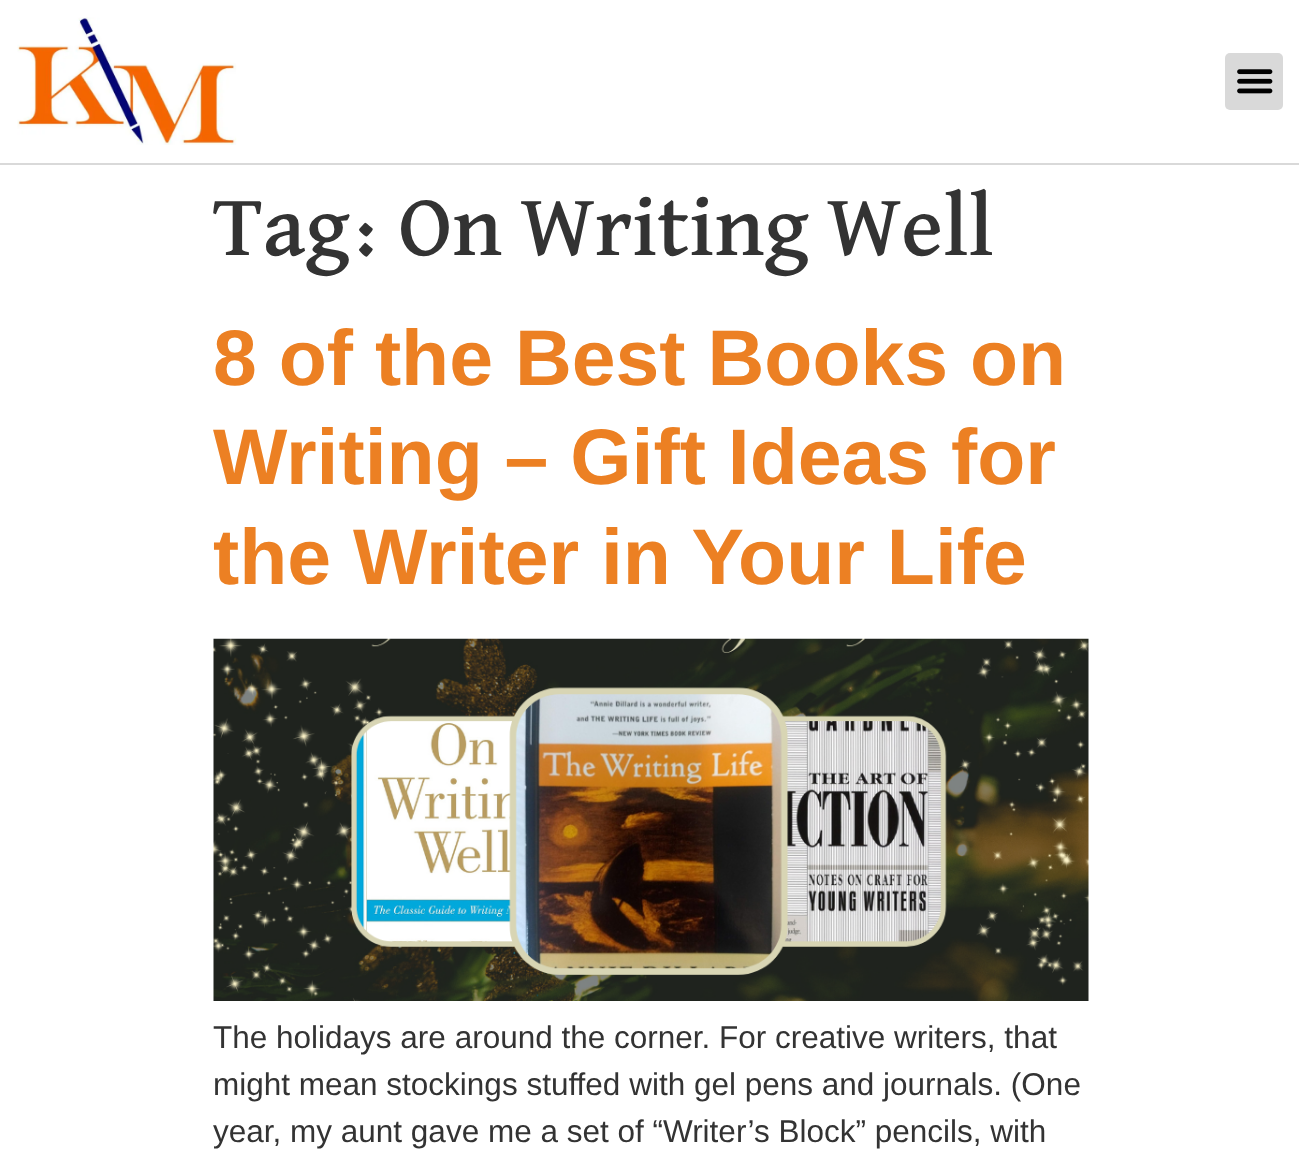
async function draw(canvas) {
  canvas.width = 1299;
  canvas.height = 1174;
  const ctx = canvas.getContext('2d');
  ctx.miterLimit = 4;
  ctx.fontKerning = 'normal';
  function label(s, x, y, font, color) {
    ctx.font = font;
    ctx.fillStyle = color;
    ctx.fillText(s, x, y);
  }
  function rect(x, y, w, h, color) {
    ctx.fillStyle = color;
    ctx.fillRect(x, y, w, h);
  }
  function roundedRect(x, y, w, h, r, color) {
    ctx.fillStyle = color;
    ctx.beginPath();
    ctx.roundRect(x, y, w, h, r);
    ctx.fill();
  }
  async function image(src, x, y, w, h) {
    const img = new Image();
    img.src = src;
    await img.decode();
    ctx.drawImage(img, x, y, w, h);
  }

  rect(0, 0, 1299, 1174, '#fff');
  rect(0, 163, 1299, 2, '#d9d9d9');
  await image('assets/img1.png', 17, 17, 220, 128);
  roundedRect(1225, 53, 58, 57, 5, '#d9d9d9');
  await image('assets/img2.png', 1237, 69, 36, 25);
  label('Tag: On Writing Well', 213, 255, '500 87.5px David Libre', '#333');
  label('8 of the Best Books on', 213, 385, 'bold 78.75px Liberation Sans', '#ec8023');
  label('Writing – Gift Ideas for', 213, 484, 'bold 78.75px Liberation Sans', '#ec8023');
  label('the Writer in Your Life', 213, 584, 'bold 78.75px Liberation Sans', '#ec8023');
  await image('assets/img3.png', 213, 638, 876, 363);
  label('The holidays are around the corner. For creative writers, that', 213, 1048, '31.5px Liberation Sans', '#333');
  label('might mean stockings stuffed with gel pens and journals. (One', 213, 1095, '31.5px Liberation Sans', '#333');
  label('year, my aunt gave me a set of “Writer’s Block” pencils, with', 213, 1142, '31.5px Liberation Sans', '#333');
}

draw(document.querySelector('canvas'));
